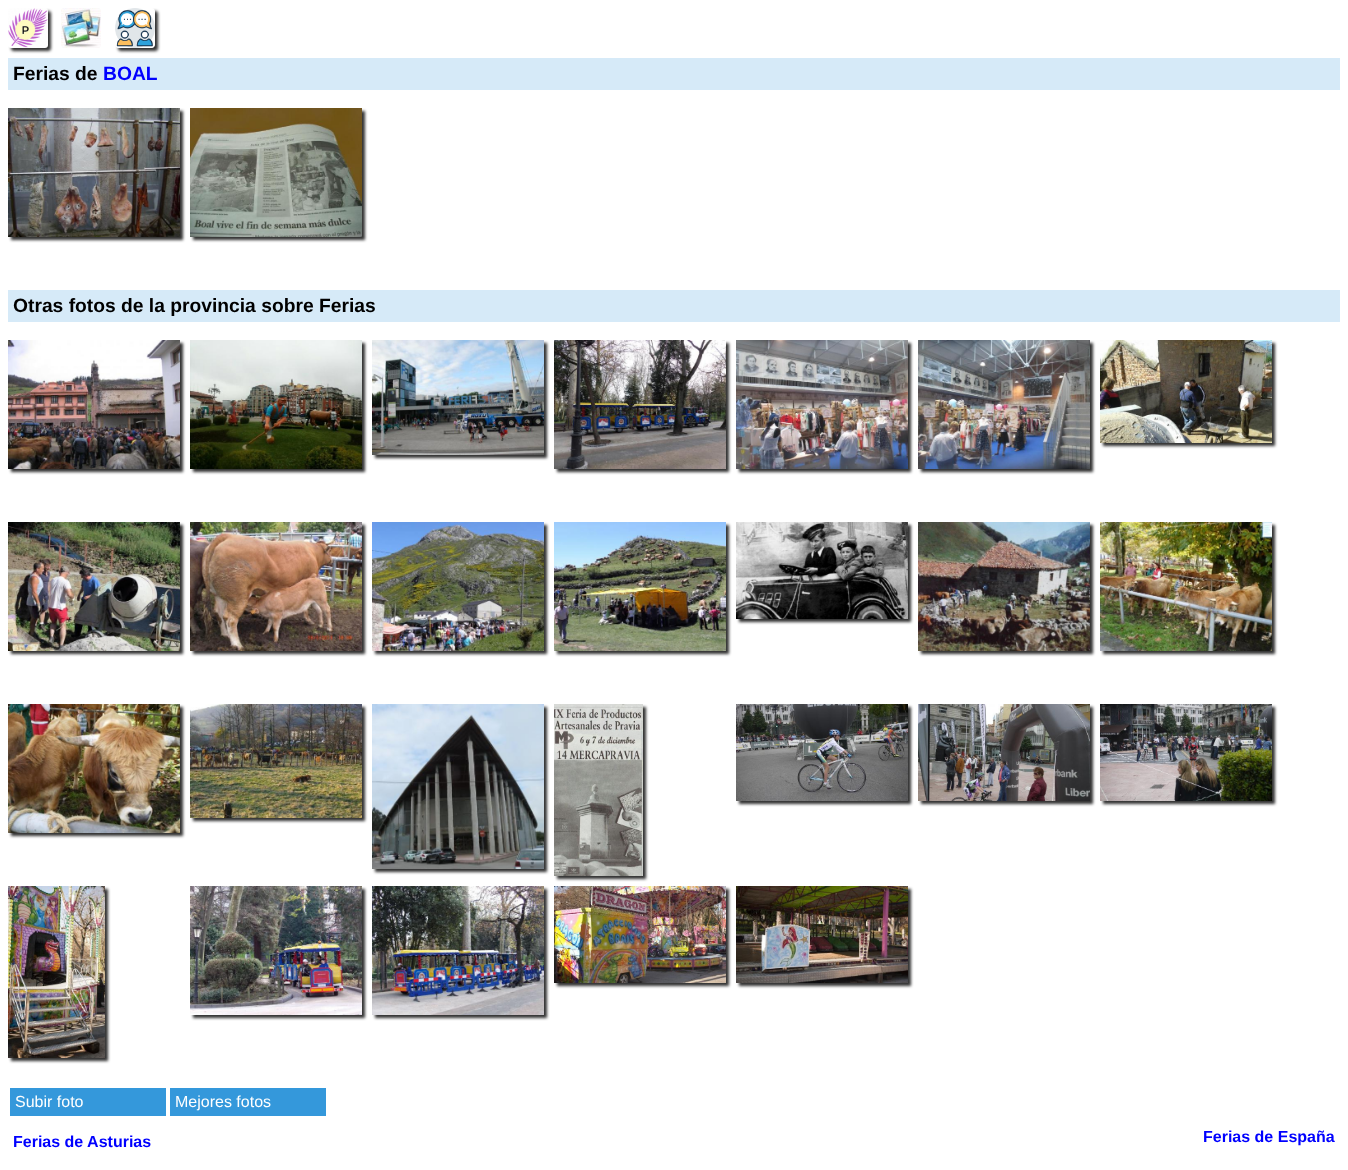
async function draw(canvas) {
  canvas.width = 1348;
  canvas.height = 1170;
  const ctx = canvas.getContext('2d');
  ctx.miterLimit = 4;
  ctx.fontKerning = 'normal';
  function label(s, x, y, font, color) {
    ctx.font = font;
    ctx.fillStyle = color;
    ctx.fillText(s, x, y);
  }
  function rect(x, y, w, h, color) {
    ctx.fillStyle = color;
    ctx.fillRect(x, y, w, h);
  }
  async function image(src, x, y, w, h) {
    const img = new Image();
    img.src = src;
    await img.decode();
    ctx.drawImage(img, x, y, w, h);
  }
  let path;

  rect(0, 0, 1348, 1170, '#fff');
  ctx.fillStyle = '#333';
  ctx.filter = 'blur(1.5px)';
  ctx.beginPath();
  ctx.roundRect(11, 11, 40, 40, 3);
  ctx.fill();
  ctx.filter = 'none';
  ctx.save();
  path = new Path2D('M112 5H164V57H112ZM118 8H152C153.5 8 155 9.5 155 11V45C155 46.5 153.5 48 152 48H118C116.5 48 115 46.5 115 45V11C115 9.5 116.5 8 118 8Z');
  ctx.clip(path, 'evenodd');
  ctx.filter = 'blur(1.5px)';
  ctx.beginPath();
  ctx.roundRect(118, 11, 40, 40, 3);
  ctx.fill();
  ctx.filter = 'none';
  ctx.restore();
  await image('assets/img1.png', 8, 8, 40, 40);
  await image('assets/img2.png', 61, 8, 40, 40);
  await image('assets/img3.png', 115, 8, 40, 40);
  rect(8, 58, 1332, 32, '#d6eaf8');
  label('Ferias de', 13, 80, 'bold 19.25px Liberation Sans', '#000');
  label('BOAL', 103, 80, 'bold 19.25px Liberation Sans', '#00f');
  ctx.fillStyle = '#333';
  ctx.filter = 'blur(1.5px)';
  ctx.beginPath();
  ctx.rect(11, 111, 172, 129);
  ctx.fill();
  ctx.filter = 'none';
  await image('assets/img4.png', 8, 108, 172, 129);
  ctx.filter = 'blur(1.5px)';
  ctx.beginPath();
  ctx.rect(193, 111, 172, 129);
  ctx.fill();
  ctx.filter = 'none';
  await image('assets/img5.png', 190, 108, 172, 129);
  rect(8, 290, 1332, 32, '#d6eaf8');
  label('Otras fotos de la provincia sobre Ferias', 13, 312, 'bold 19.25px Liberation Sans', '#000');
  ctx.fillStyle = '#333';
  ctx.filter = 'blur(1.5px)';
  ctx.beginPath();
  ctx.rect(11, 343, 172, 129);
  ctx.fill();
  ctx.filter = 'none';
  await image('assets/img6.png', 8, 340, 172, 129);
  ctx.filter = 'blur(1.5px)';
  ctx.beginPath();
  ctx.rect(193, 343, 172, 129);
  ctx.fill();
  ctx.filter = 'none';
  await image('assets/img7.png', 190, 340, 172, 129);
  ctx.filter = 'blur(1.5px)';
  ctx.beginPath();
  ctx.rect(375, 343, 172, 115);
  ctx.fill();
  ctx.filter = 'none';
  await image('assets/img8.png', 372, 340, 172, 115);
  ctx.filter = 'blur(1.5px)';
  ctx.beginPath();
  ctx.rect(557, 343, 172, 129);
  ctx.fill();
  ctx.filter = 'none';
  await image('assets/img9.png', 554, 340, 172, 129);
  ctx.filter = 'blur(1.5px)';
  ctx.beginPath();
  ctx.rect(739, 343, 172, 129);
  ctx.fill();
  ctx.filter = 'none';
  await image('assets/img10.png', 736, 340, 172, 129);
  ctx.filter = 'blur(1.5px)';
  ctx.beginPath();
  ctx.rect(921, 343, 172, 129);
  ctx.fill();
  ctx.filter = 'none';
  await image('assets/img11.png', 918, 340, 172, 129);
  ctx.filter = 'blur(1.5px)';
  ctx.beginPath();
  ctx.rect(1103, 343, 172, 103);
  ctx.fill();
  ctx.filter = 'none';
  await image('assets/img12.png', 1100, 340, 172, 103);
  ctx.filter = 'blur(1.5px)';
  ctx.beginPath();
  ctx.rect(11, 525, 172, 129);
  ctx.fill();
  ctx.filter = 'none';
  await image('assets/img13.png', 8, 522, 172, 129);
  ctx.filter = 'blur(1.5px)';
  ctx.beginPath();
  ctx.rect(193, 525, 172, 129);
  ctx.fill();
  ctx.filter = 'none';
  await image('assets/img14.png', 190, 522, 172, 129);
  ctx.filter = 'blur(1.5px)';
  ctx.beginPath();
  ctx.rect(375, 525, 172, 129);
  ctx.fill();
  ctx.filter = 'none';
  await image('assets/img15.png', 372, 522, 172, 129);
  ctx.filter = 'blur(1.5px)';
  ctx.beginPath();
  ctx.rect(557, 525, 172, 129);
  ctx.fill();
  ctx.filter = 'none';
  await image('assets/img16.png', 554, 522, 172, 129);
  ctx.filter = 'blur(1.5px)';
  ctx.beginPath();
  ctx.rect(739, 525, 172, 97);
  ctx.fill();
  ctx.filter = 'none';
  await image('assets/img17.png', 736, 522, 172, 97);
  ctx.filter = 'blur(1.5px)';
  ctx.beginPath();
  ctx.rect(921, 525, 172, 129);
  ctx.fill();
  ctx.filter = 'none';
  await image('assets/img18.png', 918, 522, 172, 129);
  ctx.filter = 'blur(1.5px)';
  ctx.beginPath();
  ctx.rect(1103, 525, 172, 129);
  ctx.fill();
  ctx.filter = 'none';
  await image('assets/img19.png', 1100, 522, 172, 129);
  ctx.filter = 'blur(1.5px)';
  ctx.beginPath();
  ctx.rect(11, 707, 172, 129);
  ctx.fill();
  ctx.filter = 'none';
  await image('assets/img20.png', 8, 704, 172, 129);
  ctx.filter = 'blur(1.5px)';
  ctx.beginPath();
  ctx.rect(193, 707, 172, 114);
  ctx.fill();
  ctx.filter = 'none';
  await image('assets/img21.png', 190, 704, 172, 114);
  ctx.filter = 'blur(1.5px)';
  ctx.beginPath();
  ctx.rect(375, 707, 172, 165);
  ctx.fill();
  ctx.filter = 'none';
  await image('assets/img22.png', 372, 704, 172, 165);
  ctx.filter = 'blur(1.5px)';
  ctx.beginPath();
  ctx.rect(557, 707, 89, 172);
  ctx.fill();
  ctx.filter = 'none';
  await image('assets/img23.png', 554, 704, 89, 172);
  ctx.filter = 'blur(1.5px)';
  ctx.beginPath();
  ctx.rect(739, 707, 172, 97);
  ctx.fill();
  ctx.filter = 'none';
  await image('assets/img24.png', 736, 704, 172, 97);
  ctx.filter = 'blur(1.5px)';
  ctx.beginPath();
  ctx.rect(921, 707, 172, 97);
  ctx.fill();
  ctx.filter = 'none';
  await image('assets/img25.png', 918, 704, 172, 97);
  ctx.filter = 'blur(1.5px)';
  ctx.beginPath();
  ctx.rect(1103, 707, 172, 97);
  ctx.fill();
  ctx.filter = 'none';
  await image('assets/img26.png', 1100, 704, 172, 97);
  ctx.filter = 'blur(1.5px)';
  ctx.beginPath();
  ctx.rect(11, 889, 97, 172);
  ctx.fill();
  ctx.filter = 'none';
  await image('assets/img27.png', 8, 886, 97, 172);
  ctx.filter = 'blur(1.5px)';
  ctx.beginPath();
  ctx.rect(193, 889, 172, 129);
  ctx.fill();
  ctx.filter = 'none';
  await image('assets/img28.png', 190, 886, 172, 129);
  ctx.filter = 'blur(1.5px)';
  ctx.beginPath();
  ctx.rect(375, 889, 172, 129);
  ctx.fill();
  ctx.filter = 'none';
  await image('assets/img29.png', 372, 886, 172, 129);
  ctx.filter = 'blur(1.5px)';
  ctx.beginPath();
  ctx.rect(557, 889, 172, 97);
  ctx.fill();
  ctx.filter = 'none';
  await image('assets/img30.png', 554, 886, 172, 97);
  ctx.filter = 'blur(1.5px)';
  ctx.beginPath();
  ctx.rect(739, 889, 172, 97);
  ctx.fill();
  ctx.filter = 'none';
  await image('assets/img31.png', 736, 886, 172, 97);
  rect(10, 1088, 156, 28, '#3498db');
  label('Subir foto', 15, 1107, '16px Liberation Sans', '#fff');
  rect(170, 1088, 156, 28, '#3498db');
  label('Mejores fotos', 175, 1107, '16px Liberation Sans', '#fff');
  label('Ferias de Asturias', 13, 1147, 'bold 16px Liberation Sans', '#00f');
  label('Ferias de España', 1203, 1142, 'bold 16px Liberation Sans', '#00f');
}

draw(document.querySelector('canvas'));
